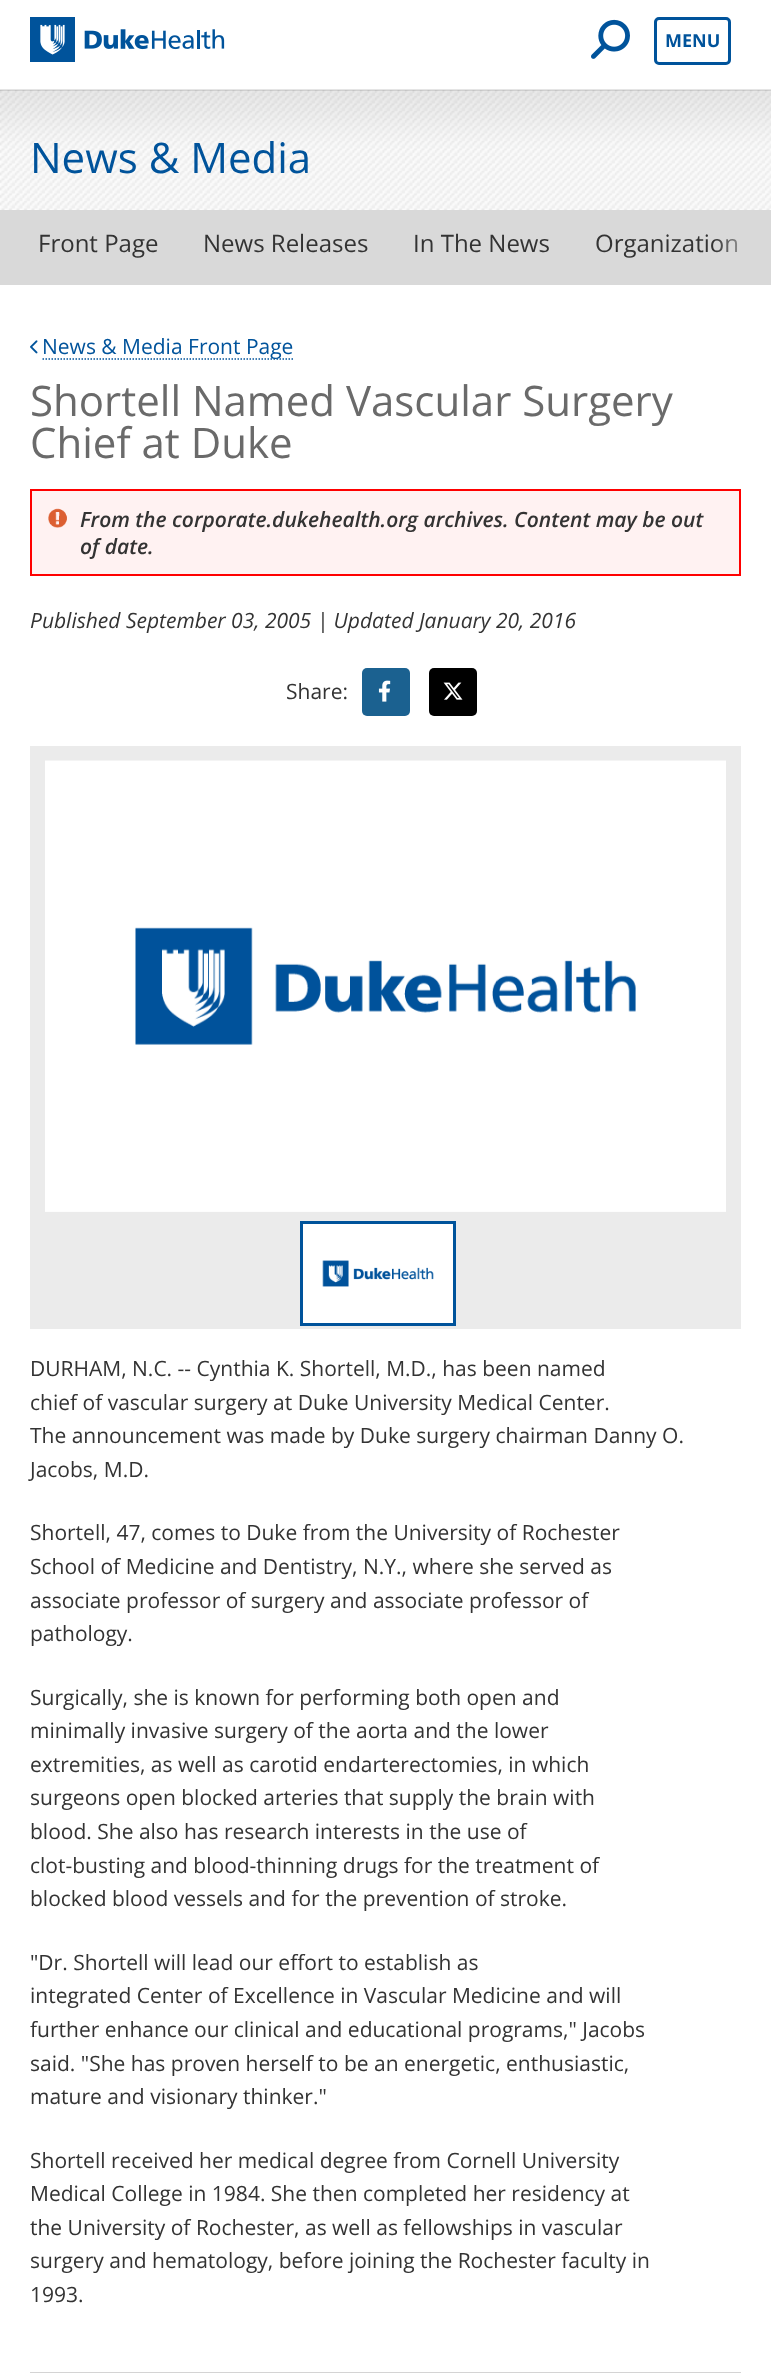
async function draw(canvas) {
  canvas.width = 771;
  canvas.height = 2373;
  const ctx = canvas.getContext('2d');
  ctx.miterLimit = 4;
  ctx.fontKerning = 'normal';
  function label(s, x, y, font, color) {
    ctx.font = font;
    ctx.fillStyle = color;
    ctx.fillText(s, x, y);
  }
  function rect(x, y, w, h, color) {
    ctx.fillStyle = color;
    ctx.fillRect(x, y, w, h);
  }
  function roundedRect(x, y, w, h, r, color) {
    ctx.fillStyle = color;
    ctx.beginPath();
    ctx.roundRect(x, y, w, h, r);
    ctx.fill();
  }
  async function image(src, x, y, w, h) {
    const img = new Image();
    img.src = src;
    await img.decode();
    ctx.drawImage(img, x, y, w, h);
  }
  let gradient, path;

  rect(0, 0, 771, 2373, '#fff');
  await image('assets/img3.png', 0, 90, 771, 120);
  rect(0, 89, 771, 2, '#0000001a');
  await image('assets/img1.png', 30, 17, 195, 45);
  await image('assets/img2.png', 591, 19, 39, 40);
  ctx.beginPath();
  ctx.roundRect(655.5, 18.5, 74, 45, 3.5);
  ctx.strokeStyle = '#00539b';
  ctx.lineWidth = 3;
  ctx.stroke();
  label('MENU', 665, 47, 'bold 18px Open Sans', '#00539b');
  label('News & Media', 30, 173, '42px Open Sans', '#00539b');
  rect(0, 210, 761, 75, '#d9d9d9');
  label('Front Page', 38, 252, '24px Open Sans', '#333');
  label('News Releases', 203, 252, '24px Open Sans', '#333');
  label('In The News', 413, 252, '24px Open Sans', '#333');
  label('Organization', 595, 252, '24px Open Sans', '#333');
  gradient = ctx.createLinearGradient(704, 248, 771, 248);
  gradient.addColorStop(0.15, '#d9d9d900');
  gradient.addColorStop(0.85, '#d9d9d9');
  ctx.fillStyle = gradient;
  ctx.fillRect(715, 210, 56, 75);
  await image('assets/img4.png', 30, 340, 8, 14);
  path = new Path2D('M42.5 359H294');
  ctx.lineWidth = 1.5;
  ctx.setLineDash([1.5, 1.5]);
  ctx.stroke(path);
  label('News & Media Front Page', 42, 354, '21px Open Sans', '#00539b');
  label('Shortell Named Vascular Surgery', 30, 416, '42px Open Sans', '#6a6a6a');
  label('Chief at Duke', 30, 458, '42px Open Sans', '#6a6a6a');
  ctx.fillStyle = '#fff2f2';
  ctx.beginPath();
  ctx.rect(31, 490, 709, 85);
  ctx.fill();
  ctx.strokeStyle = '#f00';
  ctx.lineWidth = 2;
  ctx.setLineDash([]);
  ctx.stroke();
  await image('assets/img5.png', 48, 508, 19, 20);
  label('From the corporate.dukehealth.org archives. Content may be out', 80, 527, 'italic 600 21px Open Sans', '#333');
  label('of date.', 80, 554, 'italic 600 21px Open Sans', '#333');
  label('Published September 03, 2005 | Updated January 20, 2016', 30, 628, 'italic 21px Open Sans', '#333');
  label('Share:', 286, 699, '21px Open Sans', '#333');
  roundedRect(362, 668, 48, 48, 5, '#1b6190');
  await image('assets/img6.png', 378, 680, 13, 22);
  roundedRect(429, 668, 48, 48, 5, '#000');
  await image('assets/img7.png', 443, 682, 20, 18);
  rect(30, 2372, 711, 1, '#d4d4d4');
  rect(30, 746, 711, 583, '#ebebeb');
  await image('assets/img8.png', 45, 760, 681, 452);
  ctx.strokeStyle = '#00539b';
  ctx.lineWidth = 3;
  ctx.strokeRect(301.5, 1222.5, 153, 102);
  await image('assets/img9.png', 303, 1224, 150, 99);
  label('DURHAM, N.C. -- Cynthia K. Shortell, M.D., has been named', 30, 1376, '21px Open Sans', '#333');
  label('chief of vascular surgery at Duke University Medical Center.', 30, 1410, '21px Open Sans', '#333');
  label('The announcement was made by Duke surgery chairman Danny O.', 30, 1443, '21px Open Sans', '#333');
  label('Jacobs, M.D.', 30, 1477, '21px Open Sans', '#333');
  label('Shortell, 47, comes to Duke from the University of Rochester', 30, 1540, '21px Open Sans', '#333');
  label('School of Medicine and Dentistry, N.Y., where she served as', 30, 1574, '21px Open Sans', '#333');
  label('associate professor of surgery and associate professor of', 30, 1608, '21px Open Sans', '#333');
  label('pathology.', 30, 1641, '21px Open Sans', '#333');
  label('Surgically, she is known for performing both open and', 30, 1705, '21px Open Sans', '#333');
  label('minimally invasive surgery of the aorta and the lower', 30, 1738, '21px Open Sans', '#333');
  label('extremities, as well as carotid endarterectomies, in which', 30, 1772, '21px Open Sans', '#333');
  label('surgeons open blocked arteries that supply the brain with', 30, 1805, '21px Open Sans', '#333');
  label('blood. She also has research interests in the use of', 30, 1839, '21px Open Sans', '#333');
  label('clot-busting and blood-thinning drugs for the treatment of', 30, 1873, '21px Open Sans', '#333');
  label('blocked blood vessels and for the prevention of stroke.', 30, 1906, '21px Open Sans', '#333');
  label('"Dr. Shortell will lead our effort to establish as', 30, 1970, '21px Open Sans', '#333');
  label('integrated Center of Excellence in Vascular Medicine and will', 30, 2003, '21px Open Sans', '#333');
  label('further enhance our clinical and educational programs," Jacobs', 30, 2037, '21px Open Sans', '#333');
  label('said. "She has proven herself to be an energetic, enthusiastic,', 30, 2071, '21px Open Sans', '#333');
  label('mature and visionary thinker."', 30, 2104, '21px Open Sans', '#333');
  label('Shortell received her medical degree from Cornell University', 30, 2168, '21px Open Sans', '#333');
  label('Medical College in 1984. She then completed her residency at', 30, 2201, '21px Open Sans', '#333');
  label('the University of Rochester, as well as fellowships in vascular', 30, 2235, '21px Open Sans', '#333');
  label('surgery and hematology, before joining the Rochester faculty in', 30, 2268, '21px Open Sans', '#333');
  label('1993.', 30, 2302, '21px Open Sans', '#333');
}

draw(document.querySelector('canvas'));
